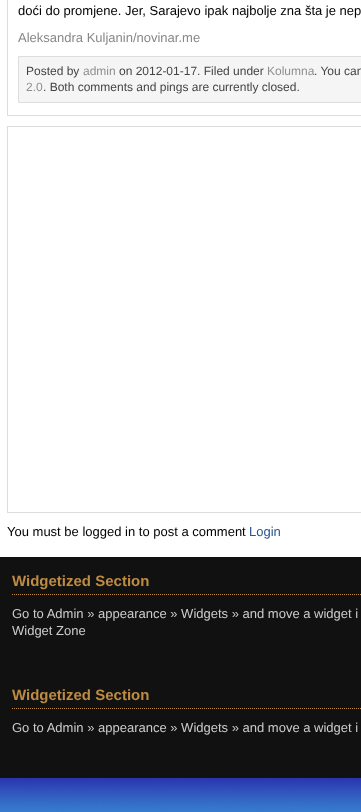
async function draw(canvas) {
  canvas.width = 361;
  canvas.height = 812;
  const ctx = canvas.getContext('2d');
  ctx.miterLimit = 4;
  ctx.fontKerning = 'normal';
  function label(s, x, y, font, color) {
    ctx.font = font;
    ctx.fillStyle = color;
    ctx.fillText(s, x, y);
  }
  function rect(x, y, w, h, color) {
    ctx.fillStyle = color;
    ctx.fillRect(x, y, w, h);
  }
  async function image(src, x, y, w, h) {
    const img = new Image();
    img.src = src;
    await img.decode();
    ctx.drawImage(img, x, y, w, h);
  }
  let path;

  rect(0, 0, 361, 812, '#fff');
  ctx.strokeStyle = '#ddd';
  ctx.strokeRect(7.5, -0.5, 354, 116);
  label('doći do promjene. Jer, Sarajevo ipak najbolje zna šta je nep', 18, 15, '13px Liberation Sans', '#000');
  label('Aleksandra Kuljanin/novinar.me', 18, 42, '13px Liberation Sans', '#888');
  ctx.fillStyle = '#f5f5f5';
  ctx.beginPath();
  ctx.rect(18.5, 56.5, 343, 46);
  ctx.fill();
  ctx.stroke();
  label('Posted by', 26, 75, '12px Liberation Sans', '#444');
  label('admin', 83, 75, '12px Liberation Sans', '#8f8f8f');
  label('on 2012-01-17. Filed under', 119, 75, '12px Liberation Sans', '#444');
  label('Kolumna', 267, 75, '12px Liberation Sans', '#8f8f8f');
  label('. You can', 314, 75, '12px Liberation Sans', '#444');
  label('2.0', 26, 91, '12px Liberation Sans', '#8f8f8f');
  label('. Both comments and pings are currently closed.', 43, 91, '12px Liberation Sans', '#444');
  ctx.strokeRect(7.5, 126.5, 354, 386);
  label('You must be logged in to post a comment', 7, 536, '13px Liberation Sans', '#000');
  label('Login', 249, 536, '13px Liberation Sans', '#29568f');
  rect(0, 557, 361, 221, '#111');
  path = new Path2D('M12 594.5H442');
  ctx.strokeStyle = '#bd8b43';
  ctx.setLineDash([1, 1]);
  ctx.stroke(path);
  label('Widgetized Section', 12, 586, 'bold 15px Liberation Sans', '#bd8b43');
  label('Go to Admin » appearance » Widgets » and move a widget i', 12, 618, '13px Liberation Sans', '#ccc');
  label('Widget Zone', 12, 635, '13px Liberation Sans', '#ccc');
  path = new Path2D('M12 708.5H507');
  ctx.stroke(path);
  label('Widgetized Section', 12, 700, 'bold 15px Liberation Sans', '#bd8b43');
  label('Go to Admin » appearance » Widgets » and move a widget i', 12, 732, '13px Liberation Sans', '#ccc');
  await image('assets/img1.png', 0, 778, 361, 34);
}

draw(document.querySelector('canvas'));
